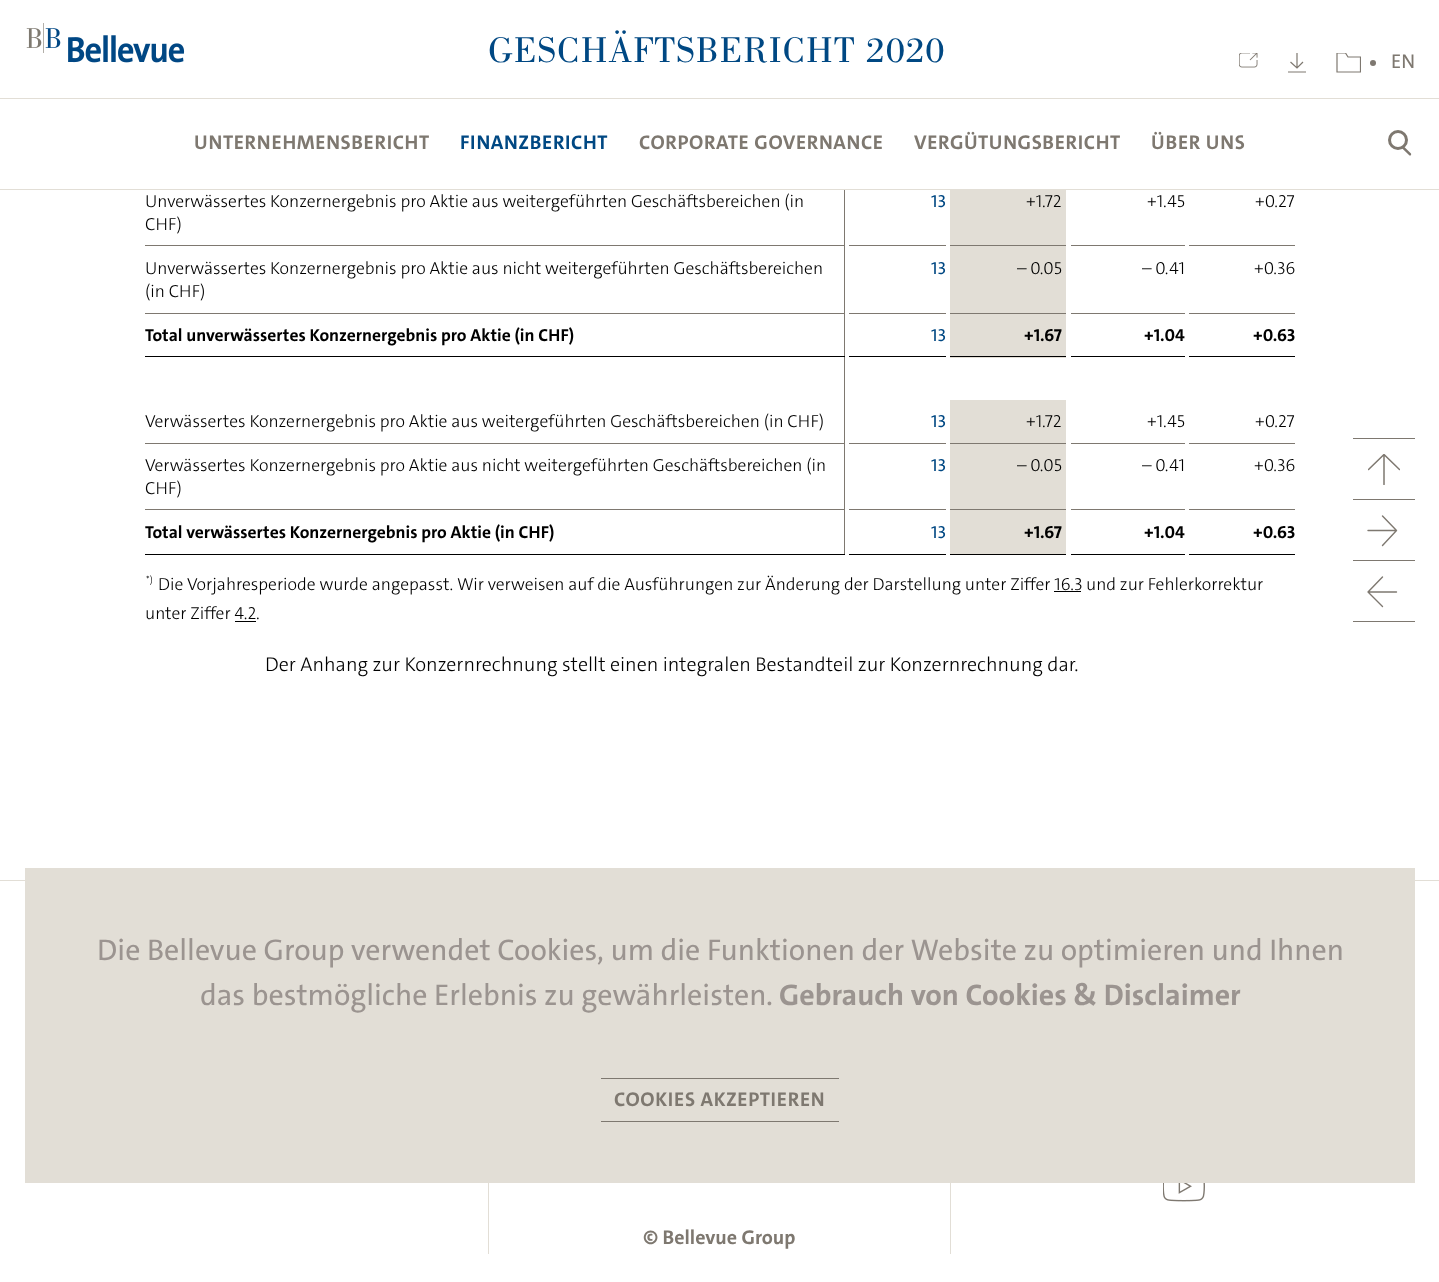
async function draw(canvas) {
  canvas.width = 1439;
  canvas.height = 1282;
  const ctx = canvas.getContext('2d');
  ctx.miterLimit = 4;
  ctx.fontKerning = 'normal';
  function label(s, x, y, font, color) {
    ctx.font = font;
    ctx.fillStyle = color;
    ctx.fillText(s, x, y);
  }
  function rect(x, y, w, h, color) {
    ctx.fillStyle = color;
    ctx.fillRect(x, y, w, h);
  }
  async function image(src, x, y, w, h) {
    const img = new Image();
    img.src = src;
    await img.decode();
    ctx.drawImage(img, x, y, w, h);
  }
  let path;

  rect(0, 0, 1439, 1282, '#fff');
  await image('assets/img1.png', 26, 23, 159, 40);
  ctx.letterSpacing = '1.1px';
  label('GESCHÄFTSBERICHT 2020', 488, 62, '37.5px Bodoni', '#004883');
  await image('assets/img2.png', 1239, 53, 19, 15);
  ctx.save();
  ctx.beginPath();
  ctx.rect(1288, 53, 18, 20);
  ctx.clip();
  path = new Path2D('M1287.5 72H1306M1297 52.5V67.5M1290.5 62L1297 68L1303 62');
  ctx.strokeStyle = '#7e7870';
  ctx.lineWidth = 1.2;
  ctx.stroke(path);
  ctx.restore();
  ctx.save();
  ctx.beginPath();
  ctx.rect(1336, 53, 25, 20);
  ctx.clip();
  path = new Path2D('M1360.5 72H1337V53H1345.5L1348 57H1360.5Z');
  ctx.strokeStyle = '#7e7870';
  ctx.lineWidth = 1.2;
  ctx.stroke(path);
  ctx.restore();
  ctx.fillStyle = '#7e7870';
  ctx.beginPath();
  ctx.arc(1373, 63, 3, 0, 2 * Math.PI);
  ctx.fill();
  ctx.letterSpacing = '0px';
  label('EN', 1391, 68, '20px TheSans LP', '#7e7870');
  rect(0, 98, 1439, 1, '#e2ded6');
  rect(0, 189, 1439, 1, '#e2ded6');
  ctx.letterSpacing = '0.6px';
  label('UNTERNEHMENSBERICHT', 194, 149, 'bold 20px TheSans LP', '#7e7870');
  label('FINANZBERICHT', 460, 149, 'bold 20px TheSans LP', '#004883');
  label('CORPORATE GOVERNANCE', 639, 149, 'bold 20px TheSans LP', '#7e7870');
  label('VERGÜTUNGSBERICHT', 914, 149, 'bold 20px TheSans LP', '#7e7870');
  label('ÜBER UNS', 1151, 149, 'bold 20px TheSans LP', '#7e7870');
  path = new Path2D('M1392 135L1411 153.5C1411.5 154.5 1411 156 1409.5 155.5L1393.5 140C1393.5 139.5 1389 137 1390.5 135C1390.5 134.5 1391.5 134.5 1392 135Z');
  ctx.fill(path);
  ctx.fillStyle = '#fff';
  ctx.beginPath();
  ctx.arc(1398, 140, 8.5, 0, 2 * Math.PI);
  ctx.fill();
  ctx.strokeStyle = '#7e7870';
  ctx.lineWidth = 3;
  ctx.stroke();
  rect(844, 190, 1, 365, '#7e7870');
  rect(145, 245, 700, 1, '#7e7870');
  ctx.letterSpacing = '0px';
  label('Unverwässertes Konzernergebnis pro Aktie aus weitergeführten Geschäftsbereichen (in', 145, 207, '300 17.5px TheSans LP', '#000');
  label('CHF)', 145, 230, '300 17.5px TheSans LP', '#000');
  rect(145, 313, 700, 1, '#7e7870');
  label('Unverwässertes Konzernergebnis pro Aktie aus nicht weitergeführten Geschäftsbereichen', 145, 274, '300 17.5px TheSans LP', '#000');
  label('(in CHF)', 145, 297, '300 17.5px TheSans LP', '#000');
  rect(145, 356, 700, 1, '#000');
  label('Total unverwässertes Konzernergebnis pro Aktie (in CHF)', 145, 341, 'bold 17.5px TheSans LP', '#000');
  rect(145, 443, 700, 1, '#7e7870');
  label('Verwässertes Konzernergebnis pro Aktie aus weitergeführten Geschäftsbereichen (in CHF)', 145, 427, '300 17.5px TheSans LP', '#000');
  rect(145, 509, 700, 1, '#7e7870');
  label('Verwässertes Konzernergebnis pro Aktie aus nicht weitergeführten Geschäftsbereichen (in', 145, 471, '300 17.5px TheSans LP', '#000');
  label('CHF)', 145, 494, '300 17.5px TheSans LP', '#000');
  rect(145, 554, 700, 1, '#000');
  label('Total verwässertes Konzernergebnis pro Aktie (in CHF)', 145, 538, 'bold 17.5px TheSans LP', '#000');
  rect(849, 245, 97, 1, '#7e7870');
  label('13', 931, 207, '17.5px TheSans LP', '#004883');
  rect(950, 190, 116, 55, '#e2ded6');
  rect(950, 245, 116, 1, '#7e7870');
  label('+1.72', 1026, 207, '300 17.5px TheSans LP', '#000');
  rect(1071, 245, 114, 1, '#7e7870');
  label('+1.45', 1147, 207, '300 17.5px TheSans LP', '#000');
  rect(1189, 245, 106, 1, '#7e7870');
  label('+0.27', 1255, 207, '300 17.5px TheSans LP', '#000');
  rect(849, 313, 97, 1, '#7e7870');
  label('13', 931, 274, '17.5px TheSans LP', '#004883');
  rect(950, 246, 116, 67, '#e2ded6');
  rect(950, 313, 116, 1, '#7e7870');
  label('– 0.05', 1017, 274, '300 17.5px TheSans LP', '#000');
  rect(1071, 313, 114, 1, '#7e7870');
  label('– 0.41', 1142, 274, '300 17.5px TheSans LP', '#000');
  rect(1189, 313, 106, 1, '#7e7870');
  label('+0.36', 1254, 274, '300 17.5px TheSans LP', '#000');
  rect(849, 356, 97, 1, '#000');
  label('13', 931, 341, '17.5px TheSans LP', '#004883');
  rect(950, 314, 116, 44, '#e2ded6');
  rect(950, 356, 116, 1, '#000');
  label('+1.67', 1024, 341, 'bold 17.5px TheSans LP', '#000');
  rect(1071, 356, 114, 1, '#000');
  label('+1.04', 1144, 341, 'bold 17.5px TheSans LP', '#000');
  rect(1189, 356, 106, 1, '#000');
  label('+0.63', 1253, 341, 'bold 17.5px TheSans LP', '#000');
  rect(849, 443, 97, 1, '#7e7870');
  label('13', 931, 427, '17.5px TheSans LP', '#004883');
  rect(950, 400, 116, 43, '#e2ded6');
  rect(950, 443, 116, 1, '#7e7870');
  label('+1.72', 1026, 427, '300 17.5px TheSans LP', '#000');
  rect(1071, 443, 114, 1, '#7e7870');
  label('+1.45', 1147, 427, '300 17.5px TheSans LP', '#000');
  rect(1189, 443, 106, 1, '#7e7870');
  label('+0.27', 1255, 427, '300 17.5px TheSans LP', '#000');
  rect(849, 509, 97, 1, '#7e7870');
  label('13', 931, 471, '17.5px TheSans LP', '#004883');
  rect(950, 444, 116, 65, '#e2ded6');
  rect(950, 509, 116, 1, '#7e7870');
  label('– 0.05', 1017, 471, '300 17.5px TheSans LP', '#000');
  rect(1071, 509, 114, 1, '#7e7870');
  label('– 0.41', 1142, 471, '300 17.5px TheSans LP', '#000');
  rect(1189, 509, 106, 1, '#7e7870');
  label('+0.36', 1254, 471, '300 17.5px TheSans LP', '#000');
  rect(849, 554, 97, 1, '#000');
  label('13', 931, 538, '17.5px TheSans LP', '#004883');
  rect(950, 510, 116, 44, '#e2ded6');
  rect(950, 554, 116, 1, '#000');
  label('+1.67', 1024, 538, 'bold 17.5px TheSans LP', '#000');
  rect(1071, 554, 114, 1, '#000');
  label('+1.04', 1144, 538, 'bold 17.5px TheSans LP', '#000');
  rect(1189, 554, 106, 1, '#000');
  label('+0.63', 1253, 538, 'bold 17.5px TheSans LP', '#000');
  label('*)', 146, 583, '300 10px TheSans LP', '#000');
  label('Die Vorjahresperiode wurde angepasst. Wir verweisen auf die Ausführungen zur Änderung der Darstellung unter Ziffer 16.3', 158, 590, '300 17.5px TheSans LP', '#000');
  label('und zur Fehlerkorrektur', 1086, 590, '300 17.5px TheSans LP', '#000');
  rect(1054, 591, 27, 1, '#000');
  label('unter Ziffer 4.2', 145, 619, '300 17.5px TheSans LP', '#000');
  label('.', 256, 619, '300 17.5px TheSans LP', '#000');
  rect(235, 621, 21, 1, '#000');
  label('Der Anhang zur Konzernrechnung stellt einen integralen Bestandteil zur Konzernrechnung dar.', 265, 671, '300 20px TheSans LP', '#000');
  rect(0, 880, 1439, 1, '#e2ded6');
  rect(25, 868, 1390, 315, '#e2ded6');
  label('Die Bellevue Group verwendet Cookies, um die Funktionen der Website zu optimieren und Ihnen', 97, 960, '30px TheSans LP', '#9b9490');
  label('das bestmögliche Erlebnis zu gewährleisten.', 200, 1005, '30px TheSans LP', '#9b9490');
  label('Gebrauch von Cookies & Disclaimer', 779, 1005, 'bold 30px TheSans LP', '#9b9490');
  rect(601, 1078, 238, 1, '#7e7870');
  rect(601, 1121, 238, 1, '#7e7870');
  ctx.letterSpacing = '0.6px';
  label('COOKIES AKZEPTIEREN', 614, 1106, 'bold 20px TheSans LP', '#7e7870');
  rect(1353, 438, 62, 1, '#7e7870');
  ctx.save();
  ctx.beginPath();
  ctx.rect(1368, 454, 32, 31);
  ctx.clip();
  path = new Path2D('M1384 454.5V484.5M1368.5 469.5L1384 454.5L1399.5 469.5');
  ctx.lineWidth = 1.5;
  ctx.lineCap = 'round';
  ctx.lineJoin = 'round';
  ctx.stroke(path);
  ctx.restore();
  rect(1353, 499, 62, 1, '#7e7870');
  path = new Path2D('M1396.5 530.5H1368M1382.5 516L1396.5 530.5L1382.5 545.5');
  ctx.lineWidth = 1.4;
  ctx.lineCap = 'round';
  ctx.lineJoin = 'round';
  ctx.stroke(path);
  rect(1353, 560, 62, 1, '#7e7870');
  rect(1353, 621, 62, 1, '#7e7870');
  path = new Path2D('M1368 592H1396.5M1382.5 577L1368 592L1382.5 606.5');
  ctx.stroke(path);
  rect(488, 1183, 1, 71, '#e2ded6');
  await image('assets/img3.png', 1163, 1183, 42, 19);
  rect(950, 1183, 1, 71, '#e2ded6');
  ctx.letterSpacing = '0px';
  label('© Bellevue Group', 643, 1244, 'bold 20px TheSans LP', '#7e7870');
}

draw(document.querySelector('canvas'));
